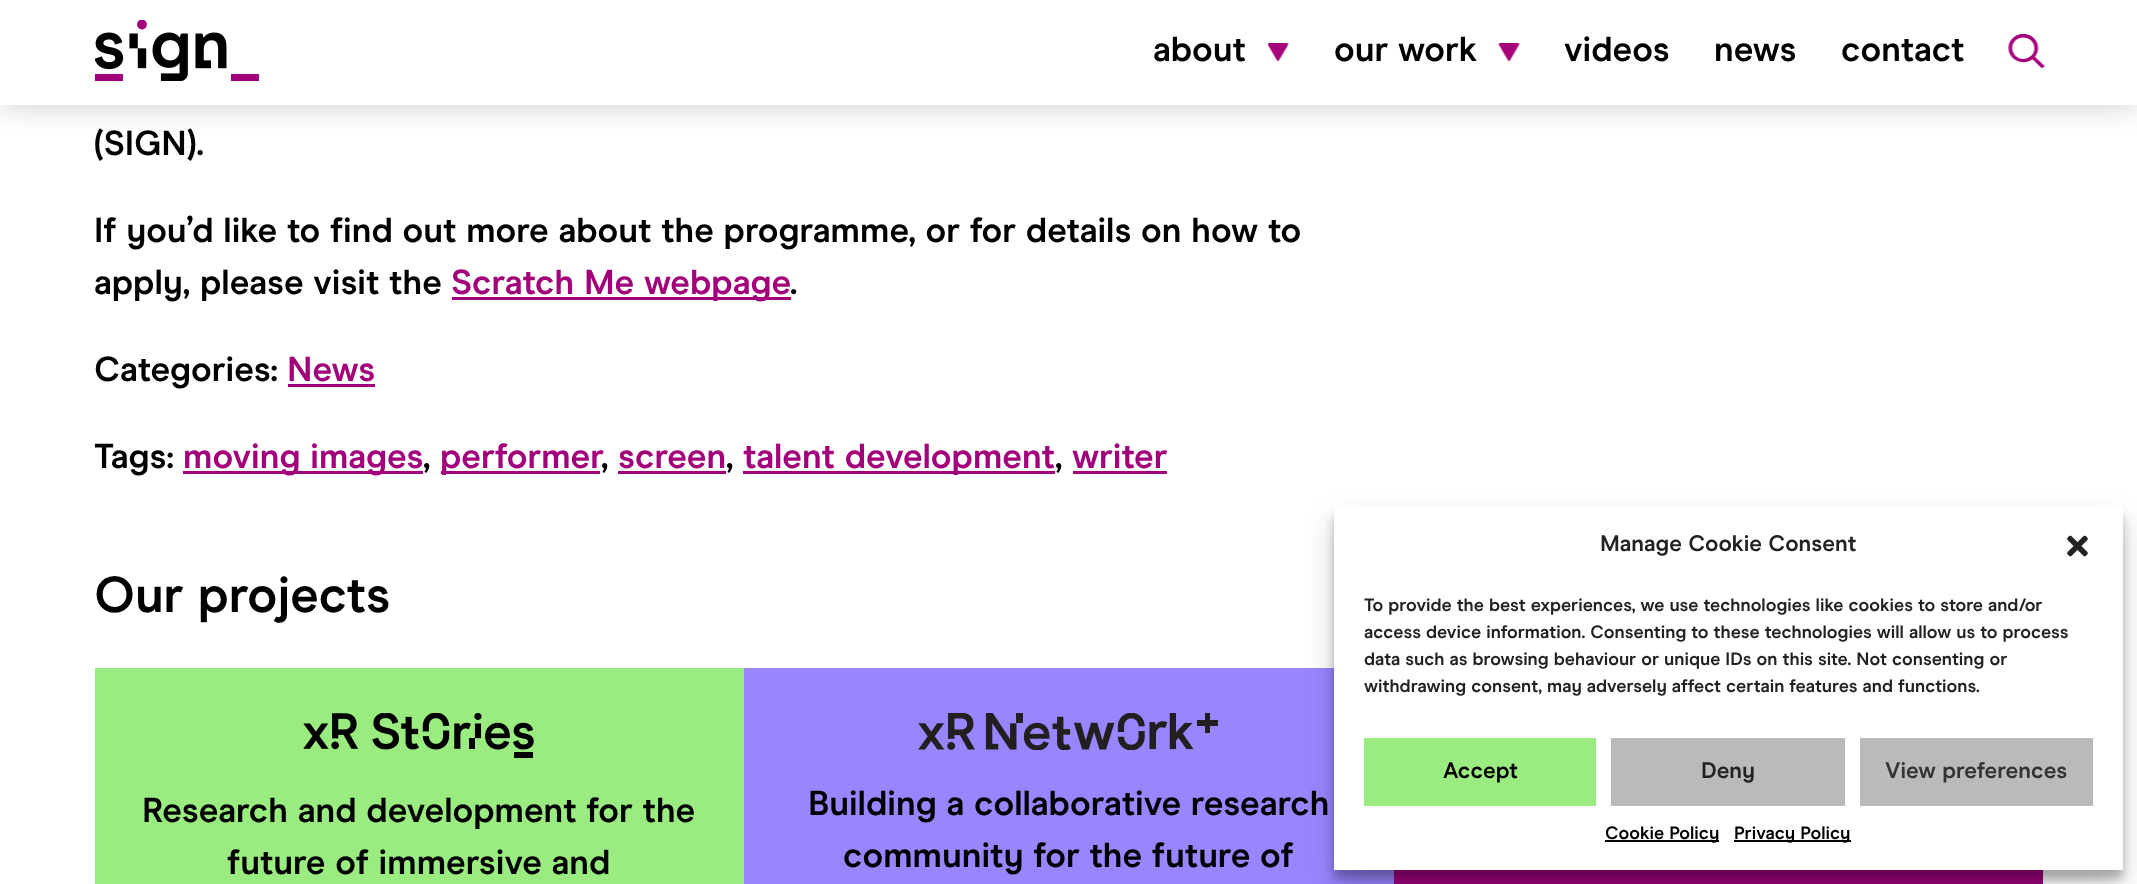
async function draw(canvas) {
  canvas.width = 2137;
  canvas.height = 884;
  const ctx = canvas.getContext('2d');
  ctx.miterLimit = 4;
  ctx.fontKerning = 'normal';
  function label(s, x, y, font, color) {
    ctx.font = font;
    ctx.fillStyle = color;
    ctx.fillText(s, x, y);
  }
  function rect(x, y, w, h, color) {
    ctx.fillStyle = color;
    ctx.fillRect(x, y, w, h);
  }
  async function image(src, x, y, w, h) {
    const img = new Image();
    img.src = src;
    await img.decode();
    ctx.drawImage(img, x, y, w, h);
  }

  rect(0, 0, 2137, 884, '#fff');
  ctx.fillStyle = '#00000033';
  ctx.filter = 'blur(15px)';
  ctx.beginPath();
  ctx.rect(0, 0, 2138, 105);
  ctx.fill();
  ctx.filter = 'none';
  rect(0, 0, 2137, 105, '#fff');
  await image('assets/img1.png', 95, 20, 164, 61);
  label('about', 1153, 61, 'bold 34.8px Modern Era', '#000');
  await image('assets/img2.png', 1268, 43, 21, 18);
  label('our work', 1334, 61, 'bold 34.8px Modern Era', '#000');
  await image('assets/img3.png', 1498, 43, 22, 18);
  label('videos', 1564, 61, 'bold 34.8px Modern Era', '#000');
  label('news', 1714, 61, 'bold 34.8px Modern Era', '#000');
  label('contact', 1841, 61, 'bold 34.8px Modern Era', '#000');
  await image('assets/img4.png', 2008, 34, 37, 34);
  label('(SIGN).', 94, 155, 'bold 34.8px Modern Era', '#000');
  label('If you’d like to find out more about the programme, or for details on how to', 94, 242, 'bold 34.8px Modern Era', '#000');
  label('apply, please visit the', 94, 294, 'bold 34.8px Modern Era', '#000');
  rect(452, 297, 339, 3, '#a2007a');
  label('Scratch Me webpage', 451, 294, 'bold 34.8px Modern Era', '#a2007a');
  label('.', 790, 294, 'bold 34.8px Modern Era', '#000');
  label('Categories:', 94, 381, 'bold 34.8px Modern Era', '#000');
  label('News', 287, 381, 'bold 34.8px Modern Era', '#a2007a');
  rect(288, 384, 87, 3, '#a2007a');
  label('Tags:', 94, 468, 'bold 34.8px Modern Era', '#000');
  rect(183, 471, 240, 3, '#a2007a');
  label('moving images', 183, 468, 'bold 34.8px Modern Era', '#a2007a');
  label(',', 423, 468, 'bold 34.8px Modern Era', '#000');
  rect(441, 471, 159, 3, '#a2007a');
  label('performer', 440, 468, 'bold 34.8px Modern Era', '#a2007a');
  label('screen', 618, 468, 'bold 34.8px Modern Era', '#a2007a');
  rect(618, 471, 108, 3, '#a2007a');
  rect(743, 471, 312, 3, '#a2007a');
  label('talent development', 743, 468, 'bold 34.8px Modern Era', '#a2007a');
  label('writer', 1072, 468, 'bold 34.8px Modern Era', '#a2007a');
  rect(1073, 471, 94, 3, '#a2007a');
  label(',', 601, 468, 'bold 34.8px Modern Era', '#000');
  label(',', 726, 468, 'bold 34.8px Modern Era', '#000');
  label(',', 1055, 468, 'bold 34.8px Modern Era', '#000');
  label('Our projects', 94, 612, 'bold 50.5px Modern Era', '#000');
  rect(95, 668, 649, 216, '#9aec80');
  await image('assets/img5.png', 303, 713, 231, 45);
  label('Research and development for the', 142, 822, 'bold 34.8px Modern Era', '#000');
  label('future of immersive and', 227, 874, 'bold 34.8px Modern Era', '#000');
  rect(744, 668, 650, 216, '#9986ff');
  await image('assets/img6.png', 918, 713, 300, 37);
  label('Building a collaborative research', 808, 815, 'bold 34.8px Modern Era', '#000');
  label('community for the future of', 843, 867, 'bold 34.8px Modern Era', '#000');
  rect(1394, 870, 649, 14, '#a1007d');
  ctx.fillStyle = '#0000003b';
  ctx.filter = 'blur(4.5px)';
  ctx.beginPath();
  ctx.rect(1334, 516, 789, 363);
  ctx.fill();
  ctx.filter = 'none';
  ctx.fillStyle = '#00000030';
  ctx.filter = 'blur(15px)';
  ctx.beginPath();
  ctx.rect(1334, 522, 789, 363);
  ctx.fill();
  ctx.filter = 'none';
  rect(1334, 507, 789, 363, '#fff');
  label('Manage Cookie Consent', 1600, 551, 'bold 22.5px Modern Era', '#222');
  await image('assets/img7.png', 2067, 535, 21, 22);
  label('To provide the best experiences, we use technologies like cookies to store and/or', 1364, 611, 'bold 18px Modern Era', '#222');
  label('access device information. Consenting to these technologies will allow us to process', 1364, 638, 'bold 18px Modern Era', '#222');
  label('data such as browsing behaviour or unique IDs on this site. Not consenting or', 1364, 665, 'bold 18px Modern Era', '#222');
  label('withdrawing consent, may adversely affect certain features and functions.', 1364, 692, 'bold 18px Modern Era', '#222');
  rect(1364, 738, 232, 68, '#9aec80');
  label('Accept', 1443, 778, 'bold 22.5px Modern Era', '#000');
  rect(1611, 738, 234, 68, '#bababa');
  label('Deny', 1701, 778, 'bold 22.5px Modern Era', '#222');
  rect(1860, 738, 233, 68, '#bababa');
  label('View preferences', 1885, 778, 'bold 22.5px Modern Era', '#333');
  rect(1605, 840, 114, 2, '#000');
  label('Cookie Policy', 1605, 839, 'bold 18px Modern Era', '#000');
  rect(1734, 840, 117, 2, '#000');
  label('Privacy Policy', 1734, 839, 'bold 18px Modern Era', '#000');
}

draw(document.querySelector('canvas'));
